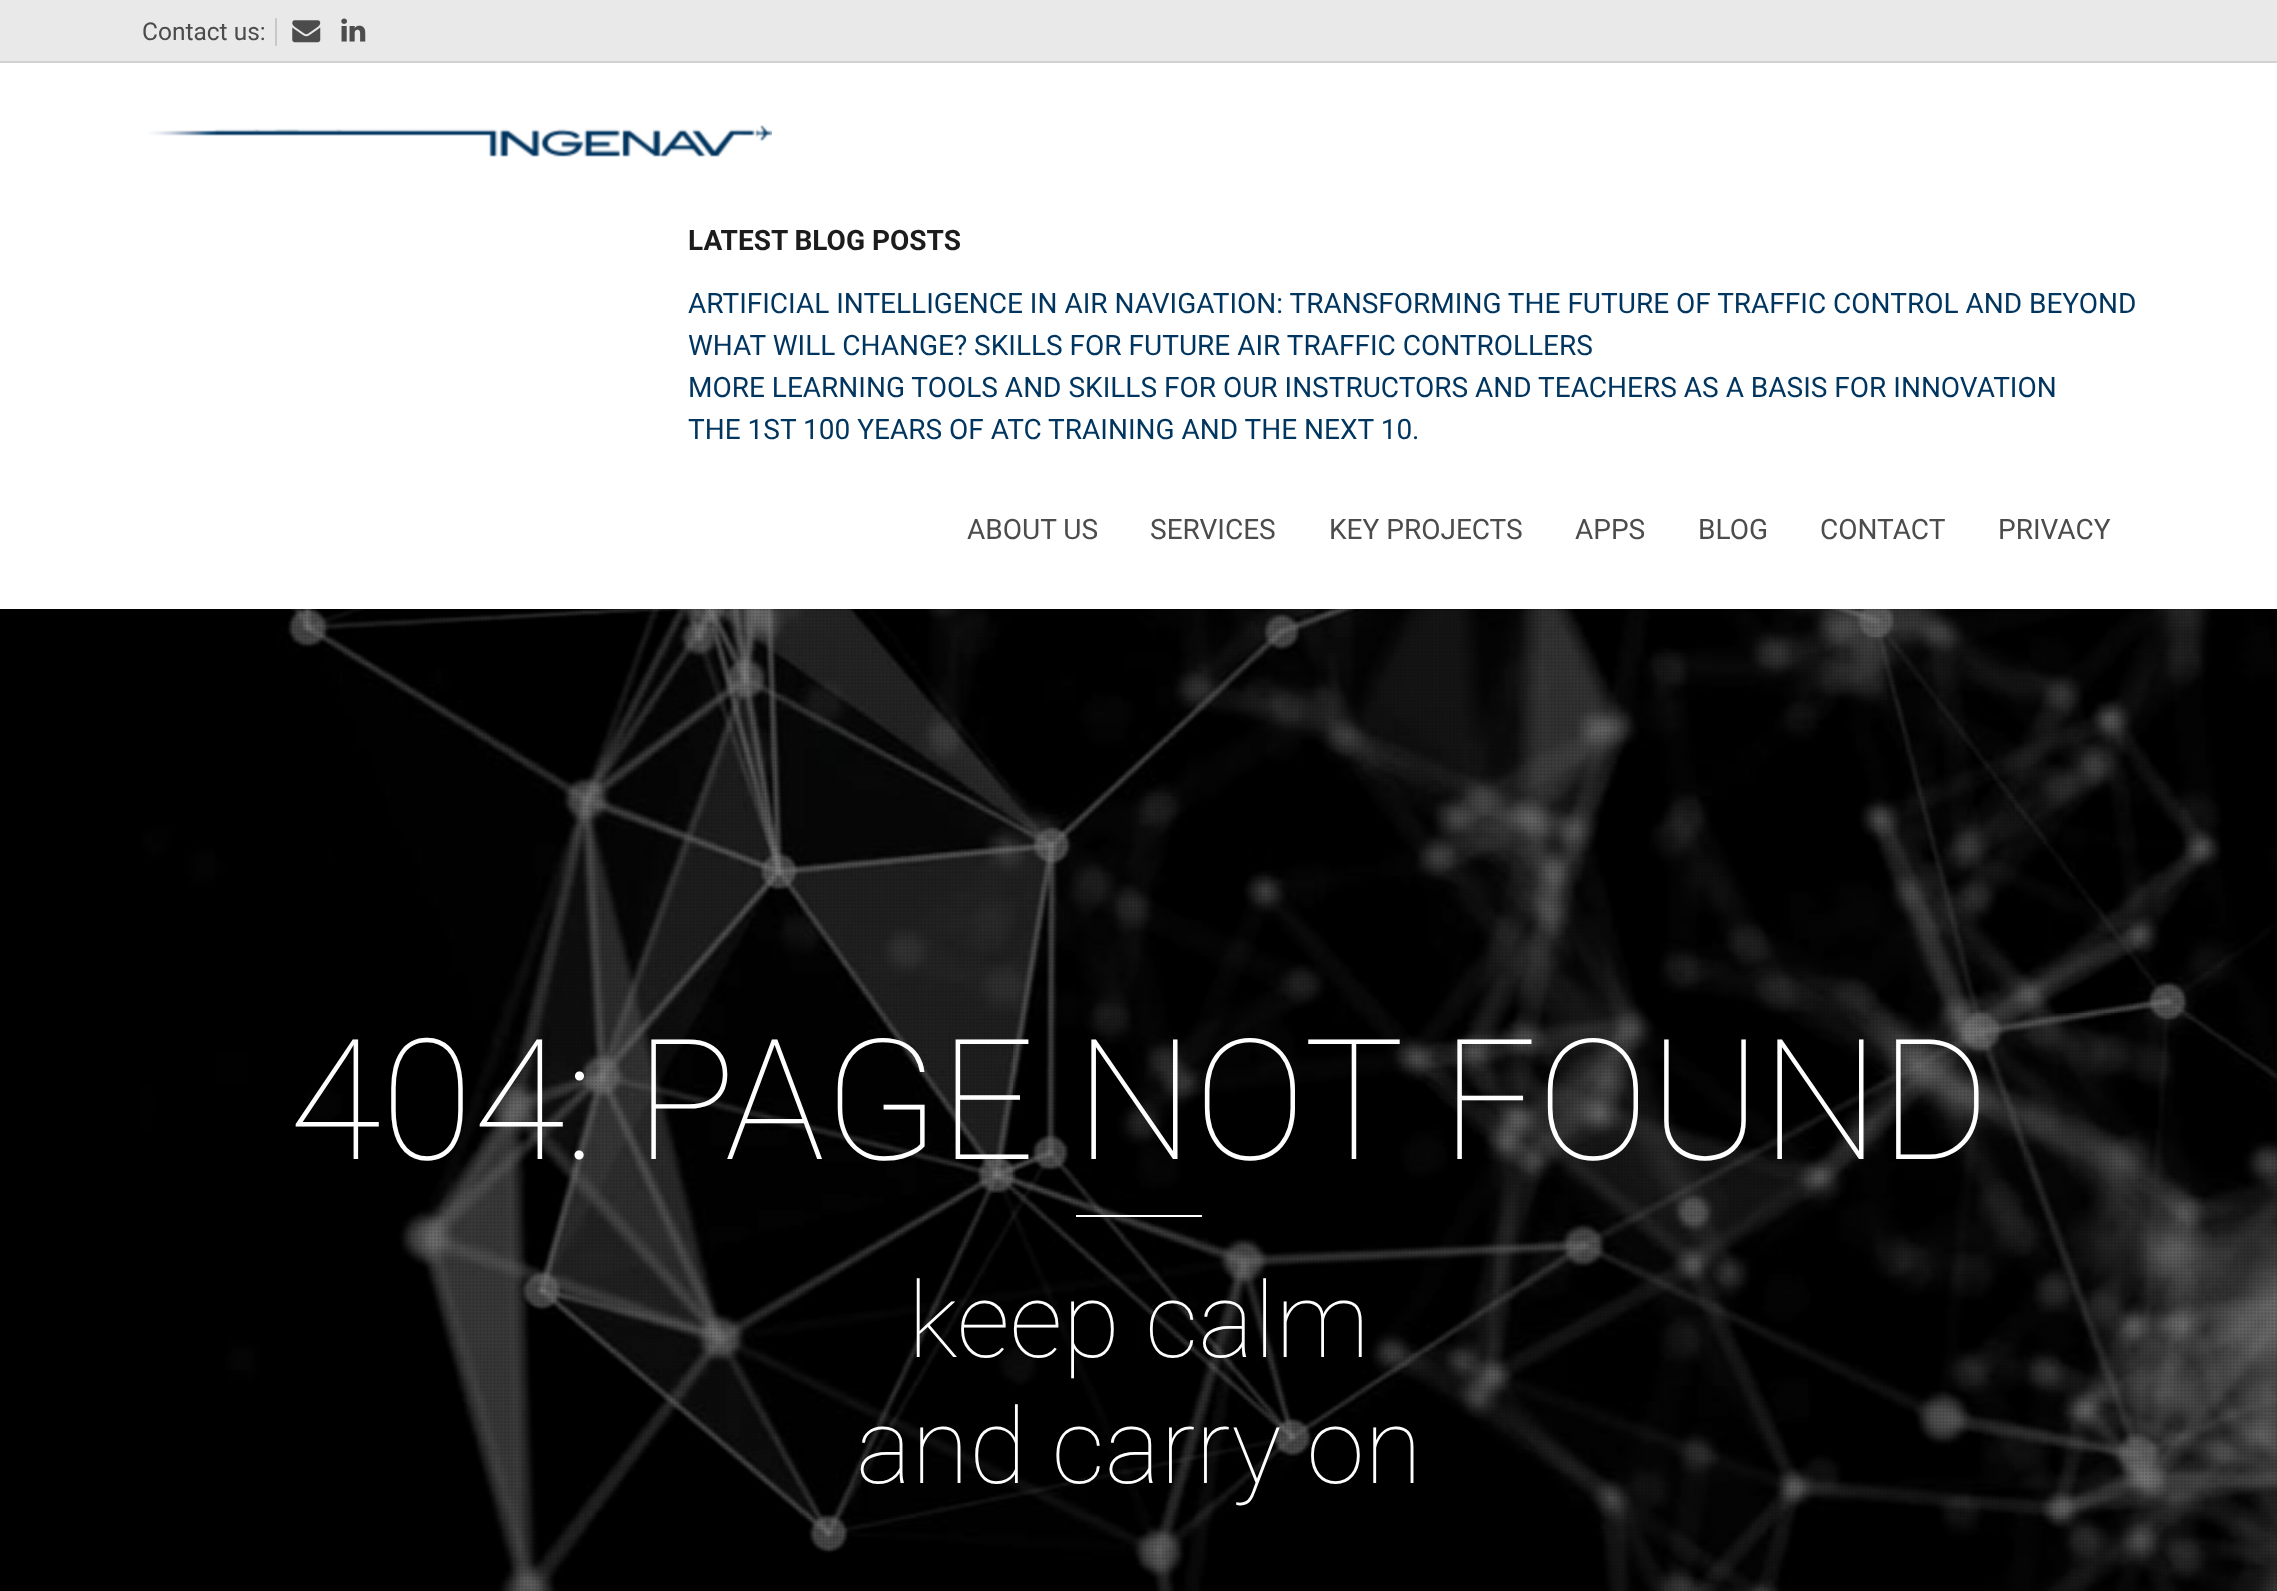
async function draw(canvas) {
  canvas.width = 2277;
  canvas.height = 1591;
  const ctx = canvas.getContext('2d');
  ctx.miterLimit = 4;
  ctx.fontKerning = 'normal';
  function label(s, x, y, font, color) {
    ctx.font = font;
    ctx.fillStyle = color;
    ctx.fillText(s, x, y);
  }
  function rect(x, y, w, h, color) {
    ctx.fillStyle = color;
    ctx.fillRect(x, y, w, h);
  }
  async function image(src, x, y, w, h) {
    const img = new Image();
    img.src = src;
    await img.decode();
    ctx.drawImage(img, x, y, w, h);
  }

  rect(0, 0, 2277, 1591, '#fff');
  rect(0, 0, 2277, 61, '#e9e9e9');
  rect(0, 61, 2277, 2, '#d2d2d2');
  label('Contact us:', 142, 40, '24.5px Roboto', '#4c4c4c');
  rect(275, 18, 2, 28, '#c9c7c7');
  await image('assets/img1.png', 292, 20, 29, 23);
  await image('assets/img2.png', 341, 18, 25, 24);
  rect(0, 609, 2277, 982, '#000');
  ctx.fillStyle = '#4d4d4d';
  ctx.filter = 'blur(4.5px)';
  ctx.beginPath();
  ctx.roundRect(2156, 1463, 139, 105, 4);
  ctx.fill();
  ctx.filter = 'none';
  await image('assets/img4.png', 142, 609, 2135, 982);
  await image('assets/img5.png', 288, 609, 1989, 982);
  ctx.save();
  ctx.beginPath();
  ctx.rect(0, 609, 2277, 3);
  ctx.clip();
  ctx.fillStyle = '#0000001a';
  ctx.filter = 'blur(1px)';
  ctx.beginPath();
  ctx.rect(0, 65, 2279, 546);
  ctx.fill();
  ctx.filter = 'none';
  ctx.restore();
  await image('assets/img3.png', 148, 125, 624, 32);
  label('LATEST BLOG POSTS', 688, 250, 'bold 28px Roboto', '#1c1c1c');
  label('ARTIFICIAL INTELLIGENCE IN AIR NAVIGATION: TRANSFORMING THE FUTURE OF TRAFFIC CONTROL AND BEYOND', 688, 313, '28px Roboto', '#00355f');
  label('WHAT WILL CHANGE? SKILLS FOR FUTURE AIR TRAFFIC CONTROLLERS', 688, 355, '28px Roboto', '#00355f');
  label('MORE LEARNING TOOLS AND SKILLS FOR OUR INSTRUCTORS AND TEACHERS AS A BASIS FOR INNOVATION', 688, 397, '28px Roboto', '#00355f');
  label('THE 1ST 100 YEARS OF ATC TRAINING AND THE NEXT 10.', 688, 439, '28px Roboto', '#00355f');
  label('ABOUT US', 967, 539, '28px Roboto', '#4c4c4c');
  label('SERVICES', 1150, 539, '28px Roboto', '#4c4c4c');
  label('KEY PROJECTS', 1329, 539, '28px Roboto', '#4c4c4c');
  label('APPS', 1575, 539, '28px Roboto', '#4c4c4c');
  label('BLOG', 1698, 539, '28px Roboto', '#4c4c4c');
  label('CONTACT', 1820, 539, '28px Roboto', '#4c4c4c');
  label('PRIVACY', 1998, 539, '28px Roboto', '#4c4c4c');
  label('404: PAGE NOT FOUND', 289, 1159, '100 168px Roboto', '#fff');
  rect(1101, 1217, 33, 1, '#00000033');
  rect(1076, 1215, 126, 2, '#fff');
  label('keep calm', 908, 1357, '100 105px Roboto', '#fff');
  label('and carry on', 856, 1483, '100 105px Roboto', '#fff');
}

draw(document.querySelector('canvas'));
